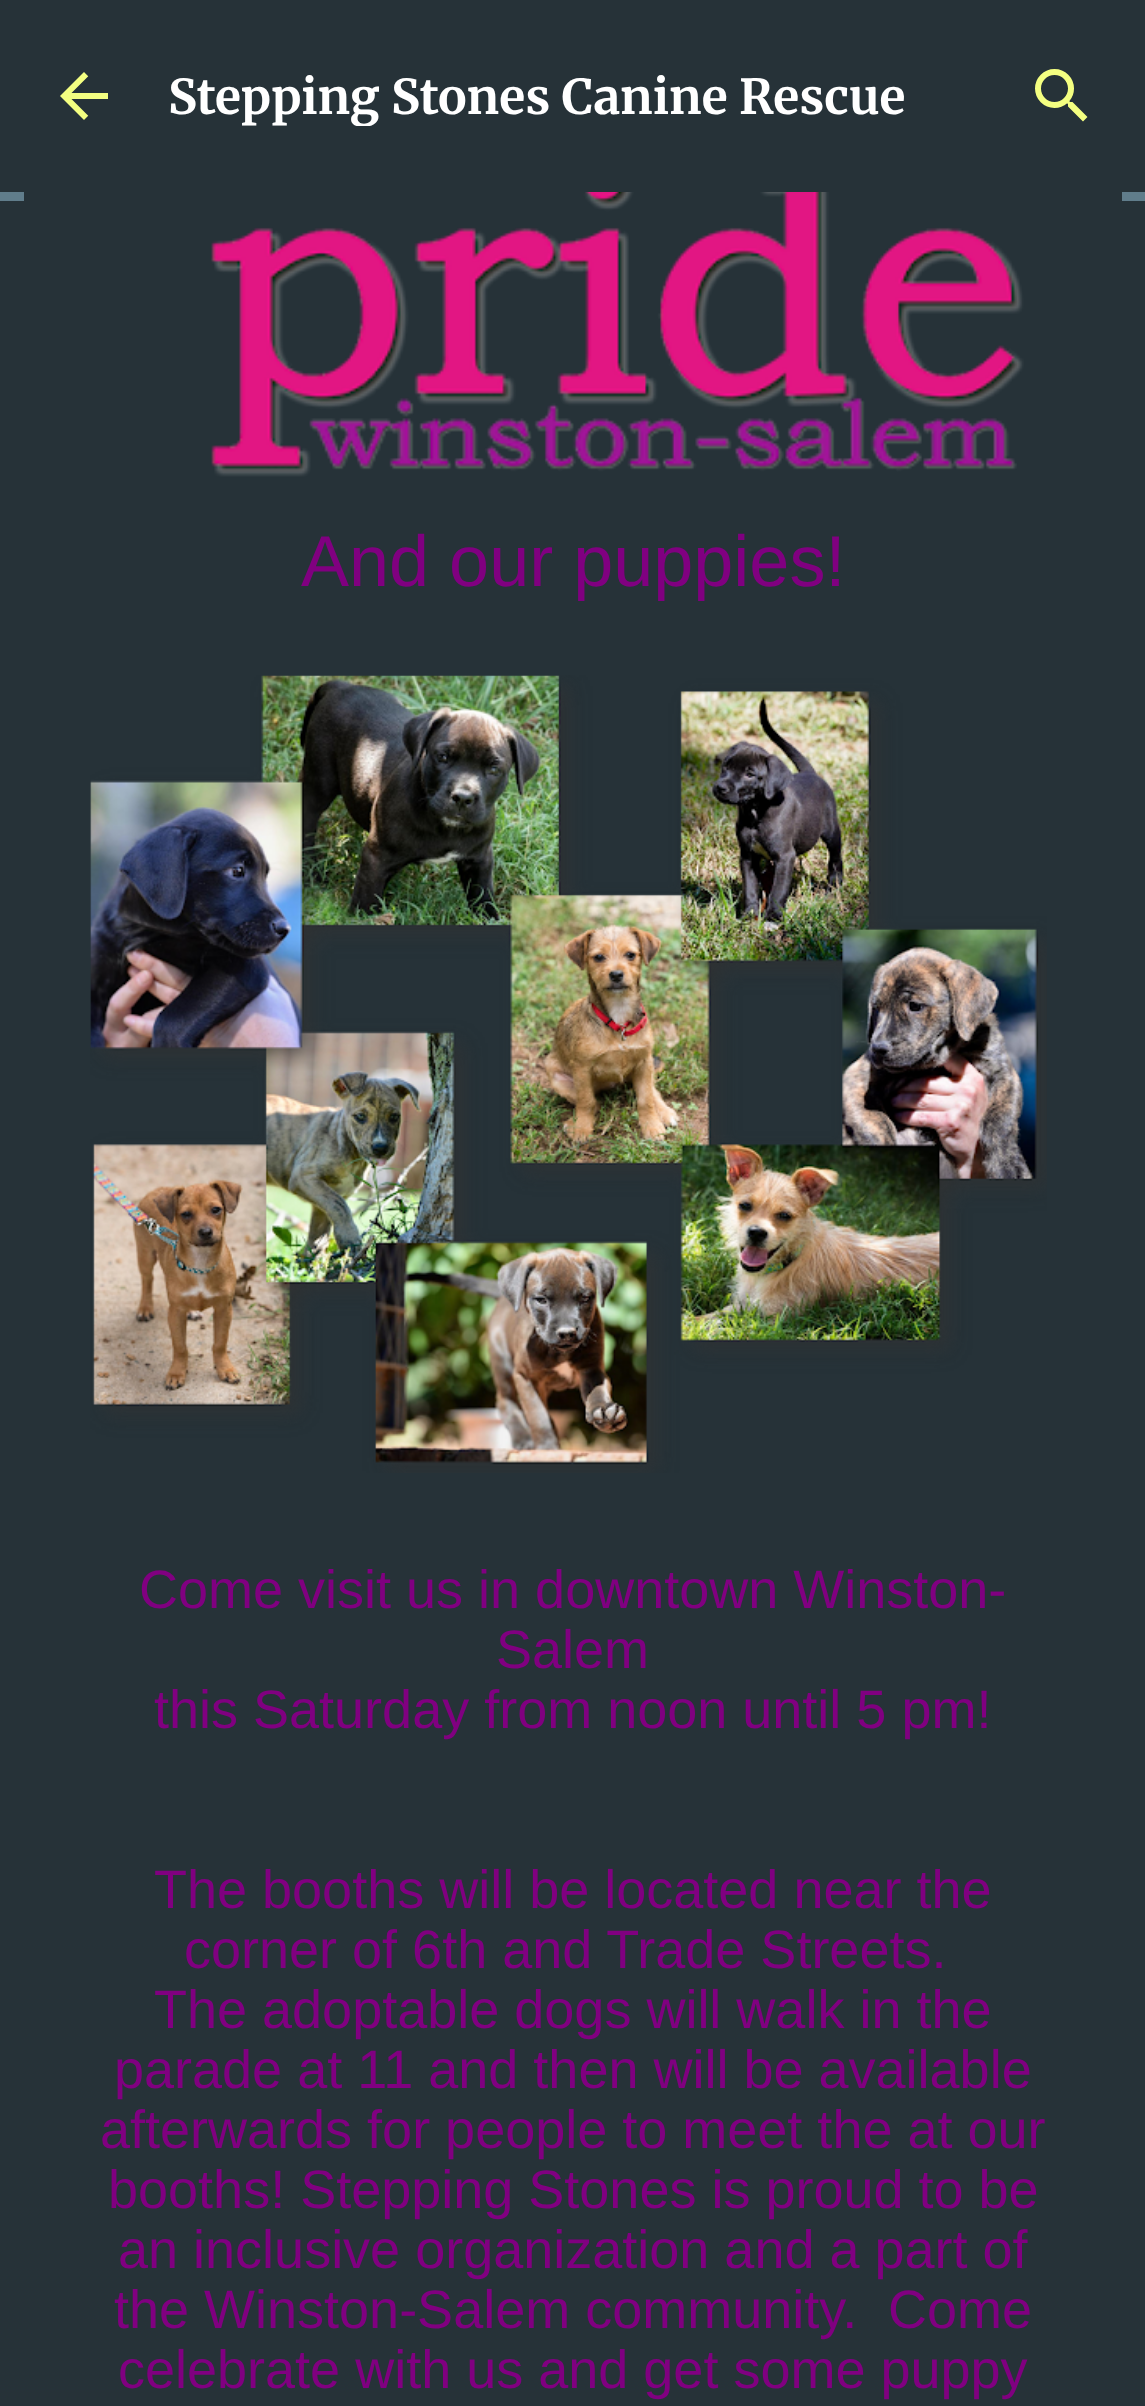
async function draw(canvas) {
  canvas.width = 1145;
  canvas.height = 2406;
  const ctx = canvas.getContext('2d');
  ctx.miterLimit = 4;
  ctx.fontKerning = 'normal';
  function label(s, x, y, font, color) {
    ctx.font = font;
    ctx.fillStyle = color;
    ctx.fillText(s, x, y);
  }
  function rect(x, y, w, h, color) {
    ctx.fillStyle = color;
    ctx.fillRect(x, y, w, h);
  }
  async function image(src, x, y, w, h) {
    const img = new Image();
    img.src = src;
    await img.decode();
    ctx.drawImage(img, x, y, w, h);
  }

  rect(0, 0, 1145, 2406, '#607d8b');
  rect(0, 0, 1145, 192, '#263238');
  await image('assets/img1.png', 60, 72, 48, 48);
  ctx.save();
  ctx.beginPath();
  ctx.rect(168, 66, 810, 60);
  ctx.clip();
  label('Stepping Stones Canine Rescue', 168, 114, '300 48px Merriweather', '#fff');
  ctx.restore();
  await image('assets/img2.png', 1035, 69, 53, 53);
  rect(0, 201, 1145, 2205, '#263238');
  rect(24, 192, 1098, 9, '#263238');
  await image('assets/img3.png', 211, 192, 813, 285);
  label('And our puppies!', 301, 586, '72px Liberation Sans', '#800080');
  await image('assets/img4.png', 90, 675, 957, 798);
  label('Come visit us in downtown Winston-', 139, 1608, '54px Liberation Sans', '#800080');
  label('Salem', 496, 1668, '54px Liberation Sans', '#800080');
  label('this Saturday from noon until 5 pm!', 154, 1728, '54px Liberation Sans', '#800080');
  label('The booths will be located near the', 154, 1908, '54px Liberation Sans', '#800080');
  label('corner of 6th and Trade Streets.', 184, 1968, '54px Liberation Sans', '#800080');
  label('The adoptable dogs will walk in the', 154, 2028, '54px Liberation Sans', '#800080');
  label('parade at 11 and then will be available', 114, 2088, '54px Liberation Sans', '#800080');
  label('afterwards for people to meet the at our', 100, 2148, '54px Liberation Sans', '#800080');
  label('booths! Stepping Stones is proud to be', 108, 2208, '54px Liberation Sans', '#800080');
  label('an inclusive organization and a part of', 118, 2268, '54px Liberation Sans', '#800080');
  label('the Winston-Salem community.', 114, 2328, '54px Liberation Sans', '#800080');
  label('Come', 888, 2328, '54px Liberation Sans', '#800080');
  label('celebrate with us and get some puppy', 118, 2388, '54px Liberation Sans', '#800080');
}

draw(document.querySelector('canvas'));
